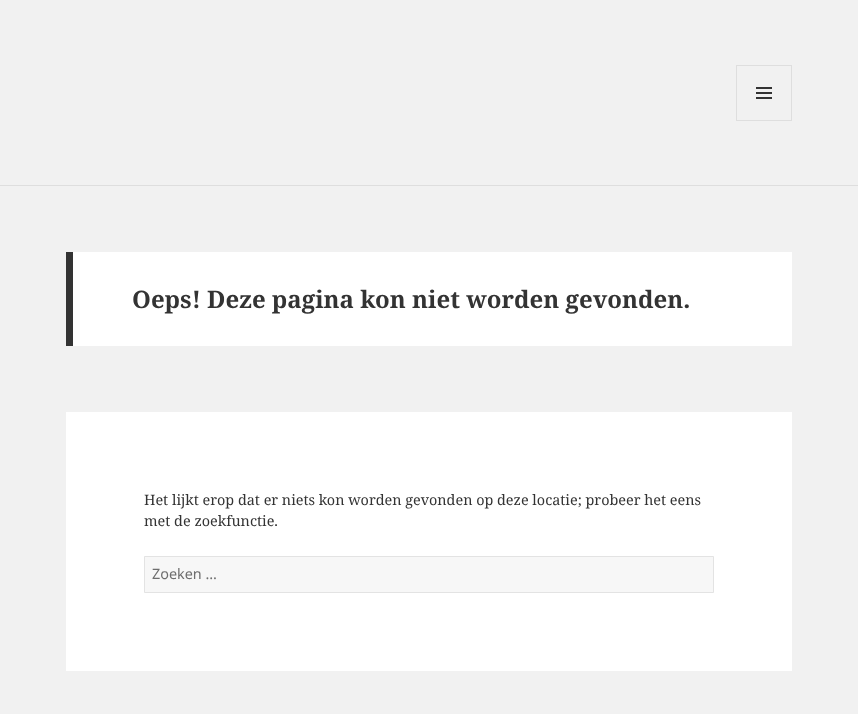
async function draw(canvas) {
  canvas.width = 858;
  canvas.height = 714;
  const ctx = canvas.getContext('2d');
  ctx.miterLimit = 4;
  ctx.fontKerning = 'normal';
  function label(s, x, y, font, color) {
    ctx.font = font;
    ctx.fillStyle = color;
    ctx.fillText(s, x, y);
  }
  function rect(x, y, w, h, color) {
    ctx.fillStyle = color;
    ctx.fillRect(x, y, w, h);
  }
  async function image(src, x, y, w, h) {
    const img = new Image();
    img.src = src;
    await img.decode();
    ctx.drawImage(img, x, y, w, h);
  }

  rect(0, 0, 858, 714, '#f1f1f1');
  rect(0, 185, 858, 1, '#dedede');
  ctx.strokeStyle = '#dedede';
  ctx.strokeRect(736.5, 65.5, 55, 55);
  await image('assets/img1.png', 756, 87, 16, 12);
  rect(73, 252, 719, 94, '#fff');
  rect(66, 252, 7, 94, '#333');
  label('Oeps! Deze pagina kon niet worden gevonden.', 132, 308, 'bold 24px Noto Serif', '#333');
  rect(66, 412, 726, 259, '#fff');
  label('Het lijkt erop dat er niets kon worden gevonden op deze locatie; probeer het eens', 144, 505, '14.4px Noto Serif', '#333');
  label('met de zoekfunctie.', 144, 526, '14.4px Noto Serif', '#333');
  ctx.fillStyle = '#f7f7f7';
  ctx.beginPath();
  ctx.rect(144.5, 556.5, 569, 36);
  ctx.fill();
  ctx.strokeStyle = '#e3e3e3';
  ctx.stroke();
  label('Zoeken …', 152, 579, '14.4px Noto Sans', '#6e6e6e');
}

draw(document.querySelector('canvas'));
